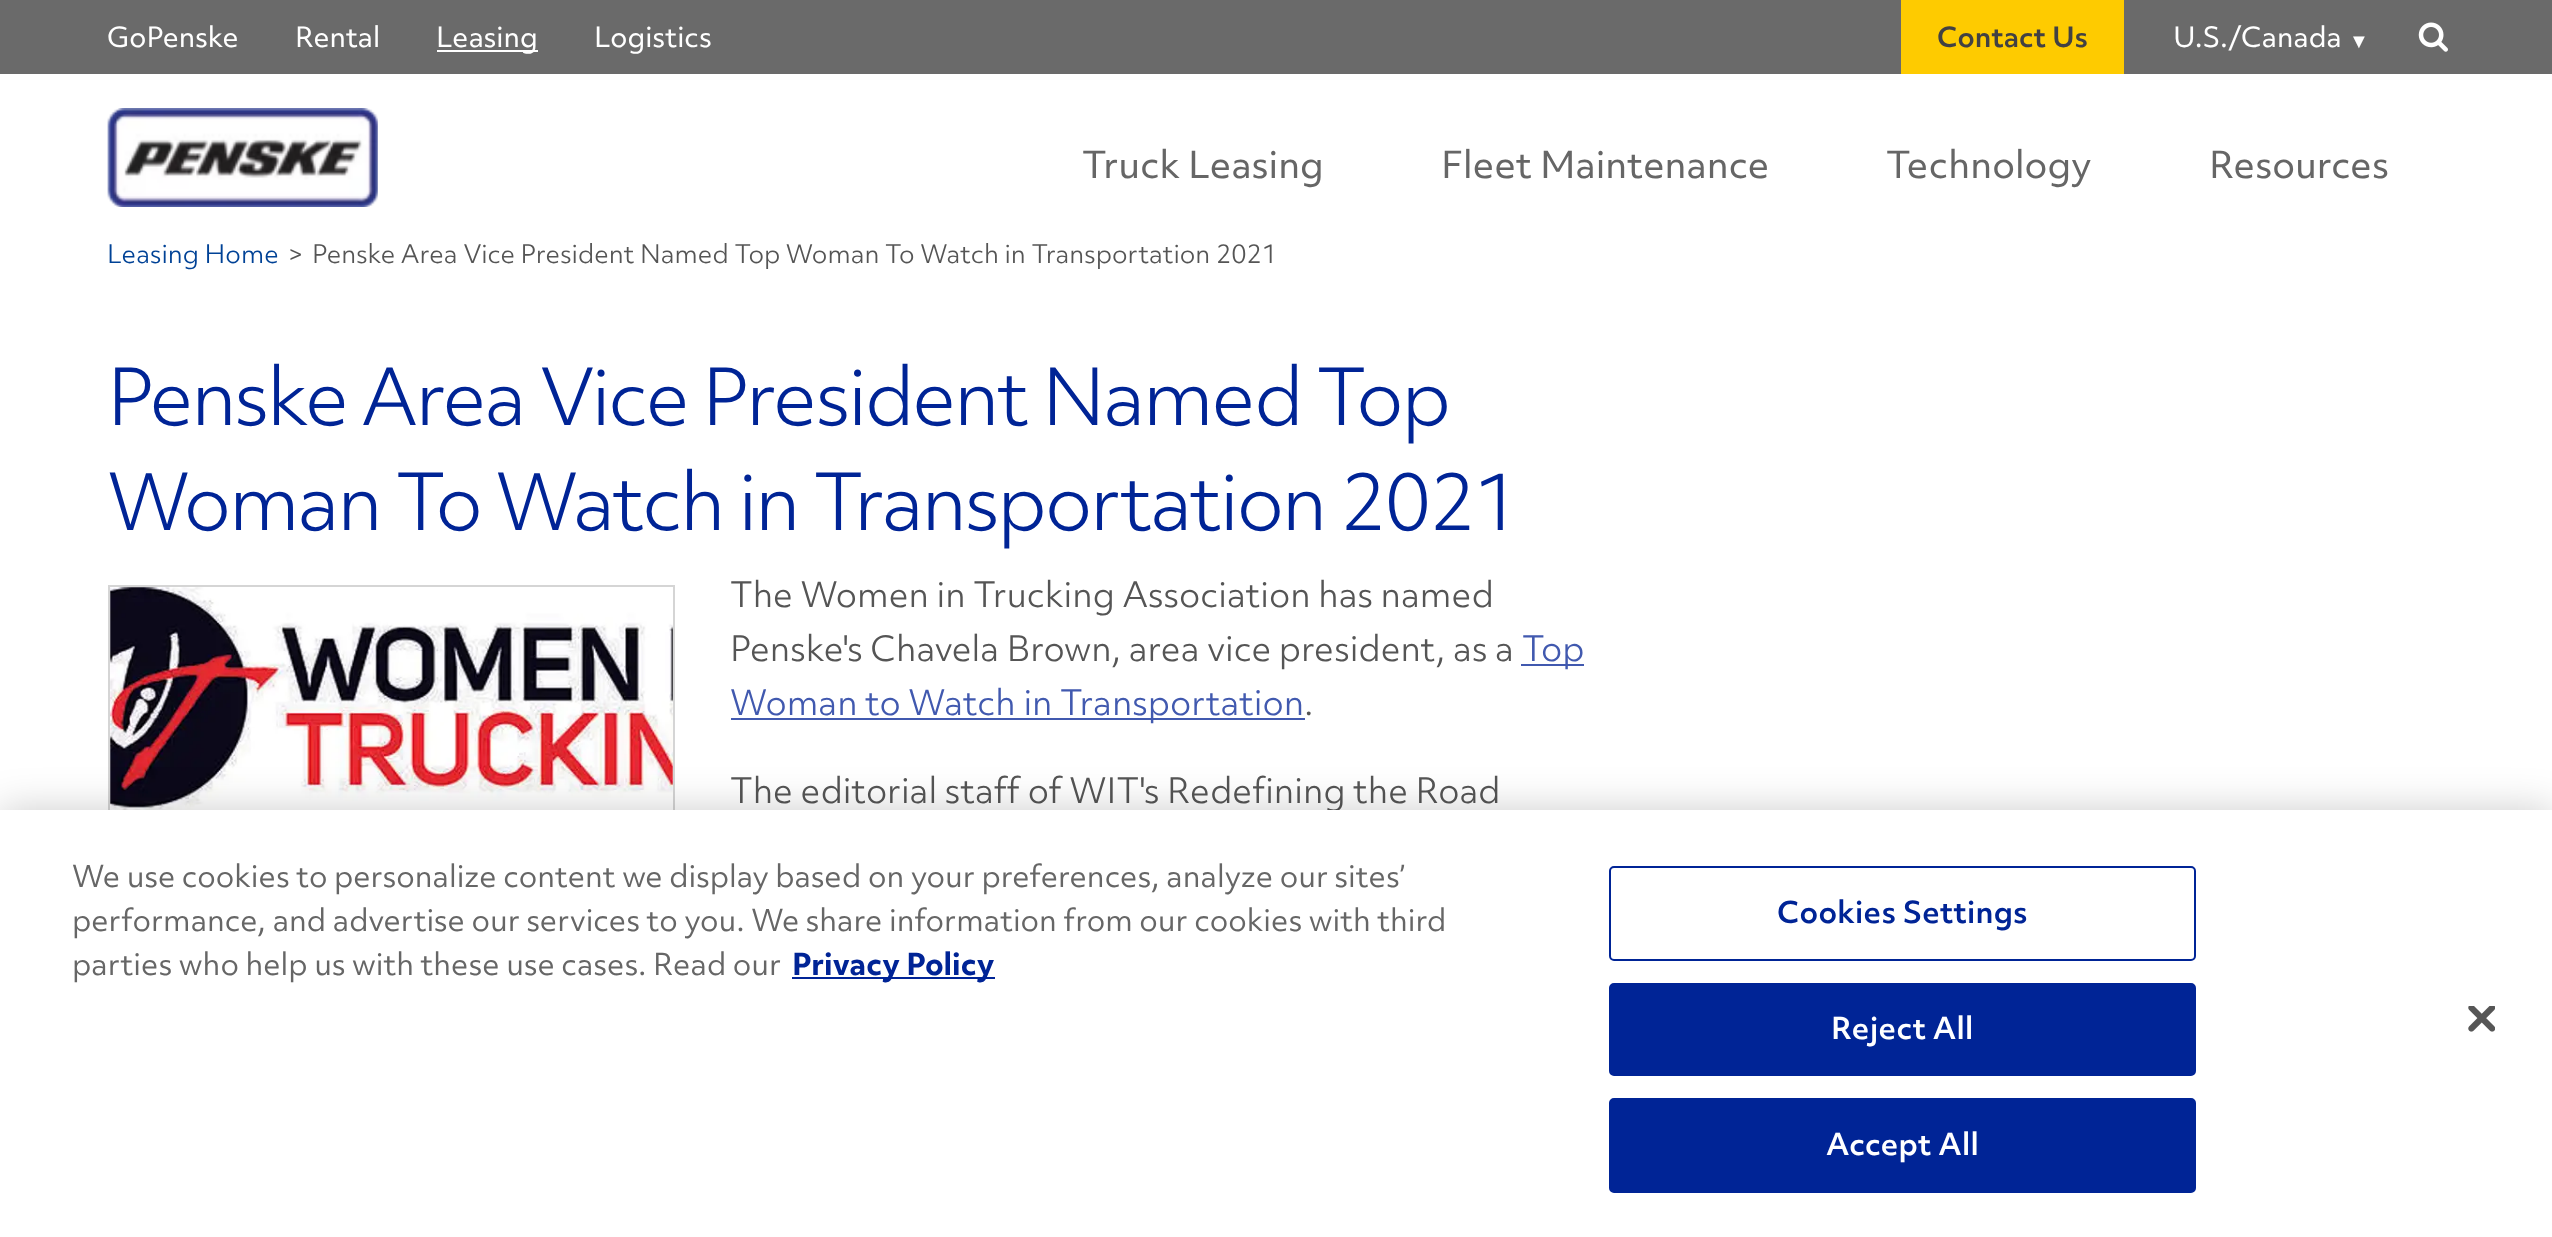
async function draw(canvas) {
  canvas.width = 2552;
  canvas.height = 1237;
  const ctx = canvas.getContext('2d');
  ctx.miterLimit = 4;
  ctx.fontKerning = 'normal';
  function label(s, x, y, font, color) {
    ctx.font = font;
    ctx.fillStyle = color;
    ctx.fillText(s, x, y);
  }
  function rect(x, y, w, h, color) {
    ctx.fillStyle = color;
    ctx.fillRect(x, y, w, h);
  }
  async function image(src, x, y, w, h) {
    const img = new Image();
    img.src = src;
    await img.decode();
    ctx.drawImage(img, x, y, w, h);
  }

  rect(0, 0, 2552, 1237, '#fff');
  rect(0, 0, 2552, 74, '#6a6a6a');
  label('GoPenske', 107, 47, '500 27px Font', '#fff');
  label('Rental', 295, 47, '500 27px Font', '#fff');
  rect(437, 50, 101, 2, '#fff');
  label('Leasing', 436, 47, '500 27px Font', '#fff');
  label('Logistics', 594, 47, '500 27px Font', '#fff');
  rect(1901, 0, 223, 74, '#fecb00');
  label('Contact Us', 1937, 47, '600 27px Font', '#424143');
  label('U.S./Canada', 2173, 47, '500 27px Font', '#fff');
  label('▼', 2349, 48, '20px Liberation Sans', '#fff');
  await image('assets/img1.png', 2418, 22, 30, 30);
  await image('assets/img2.png', 107, 108, 271, 99);
  label('Truck Leasing', 1082, 178, '500 36px Font', '#666');
  label('Fleet Maintenance', 1441, 178, '500 36px Font', '#666');
  label('Technology', 1886, 178, '500 36px Font', '#666');
  label('Resources', 2209, 178, '500 36px Font', '#666');
  label('Leasing Home', 107, 263, '300 24.75px Font', '#004296');
  label('>', 288, 263, '300 24.75px Font', '#555');
  ctx.save();
  ctx.beginPath();
  ctx.rect(0, 243, 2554, 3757);
  ctx.clip();
  label('Penske Area Vice President Named Top Woman To Watch in Transportation 2021', 312, 263, '300 24.75px Font', '#555');
  ctx.restore();
  ctx.letterSpacing = '-2.25px';
  label('Penske Area Vice President Named Top', 107, 425, '200 75.6px Font', '#002496');
  label('Woman To Watch in Transportation 2021', 107, 530, '200 75.6px Font', '#002496');
  ctx.strokeStyle = '#d5d5d5';
  ctx.lineWidth = 2;
  ctx.strokeRect(109, 586, 565, 565);
  await image('assets/img3.png', 110, 587, 563, 223);
  ctx.letterSpacing = '0px';
  label('The Women in Trucking Association has named', 730, 607, '300 33.75px Font', '#555');
  label('Penske\'s Chavela Brown, area vice president, as a', 730, 661, '300 33.75px Font', '#555');
  rect(1521, 664, 63, 2, '#4159af');
  label('Top', 1522, 661, '300 33.75px Font', '#4159af');
  rect(731, 718, 574, 2, '#4159af');
  label('Woman to Watch in Transportation', 730, 715, '300 33.75px Font', '#4159af');
  label('.', 1304, 715, '300 33.75px Font', '#555');
  label('The editorial staff of WIT\'s Redefining the Road', 730, 803, '300 33.75px Font', '#555');
  ctx.fillStyle = '#00000033';
  ctx.filter = 'blur(20px)';
  ctx.beginPath();
  ctx.rect(0, 810, 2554, 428);
  ctx.fill();
  ctx.filter = 'none';
  rect(0, 810, 2552, 427, '#fff');
  label('We use cookies to personalize content we display based on your preferences, analyze our sites’', 72, 887, '29.25px Font', '#666');
  label('performance, and advertise our services to you. We share information from our cookies with third', 72, 931, '29.25px Font', '#666');
  label('parties who help us with these use cases. Read our', 72, 975, '29.25px Font', '#666');
  rect(792, 977, 203, 2, '#002496');
  label('Privacy Policy', 792, 975, 'bold 29.25px Font', '#002496');
  ctx.beginPath();
  ctx.roundRect(1610, 867, 585, 93, 4);
  ctx.strokeStyle = '#002496';
  ctx.stroke();
  ctx.letterSpacing = '0.25px';
  label('Cookies Settings', 1777, 923, '600 29.25px Font', '#002496');
  ctx.beginPath();
  ctx.roundRect(1610, 984, 585, 91, 4);
  ctx.fill();
  ctx.stroke();
  label('Reject All', 1831, 1039, '600 29.25px Font', '#fff');
  ctx.fillStyle = '#002496';
  ctx.beginPath();
  ctx.roundRect(1610, 1099, 585, 93, 4);
  ctx.fill();
  ctx.stroke();
  label('Accept All', 1826, 1155, '600 29.25px Font', '#fff');
  await image('assets/img4.png', 2468, 1006, 27, 26);
}

draw(document.querySelector('canvas'));
